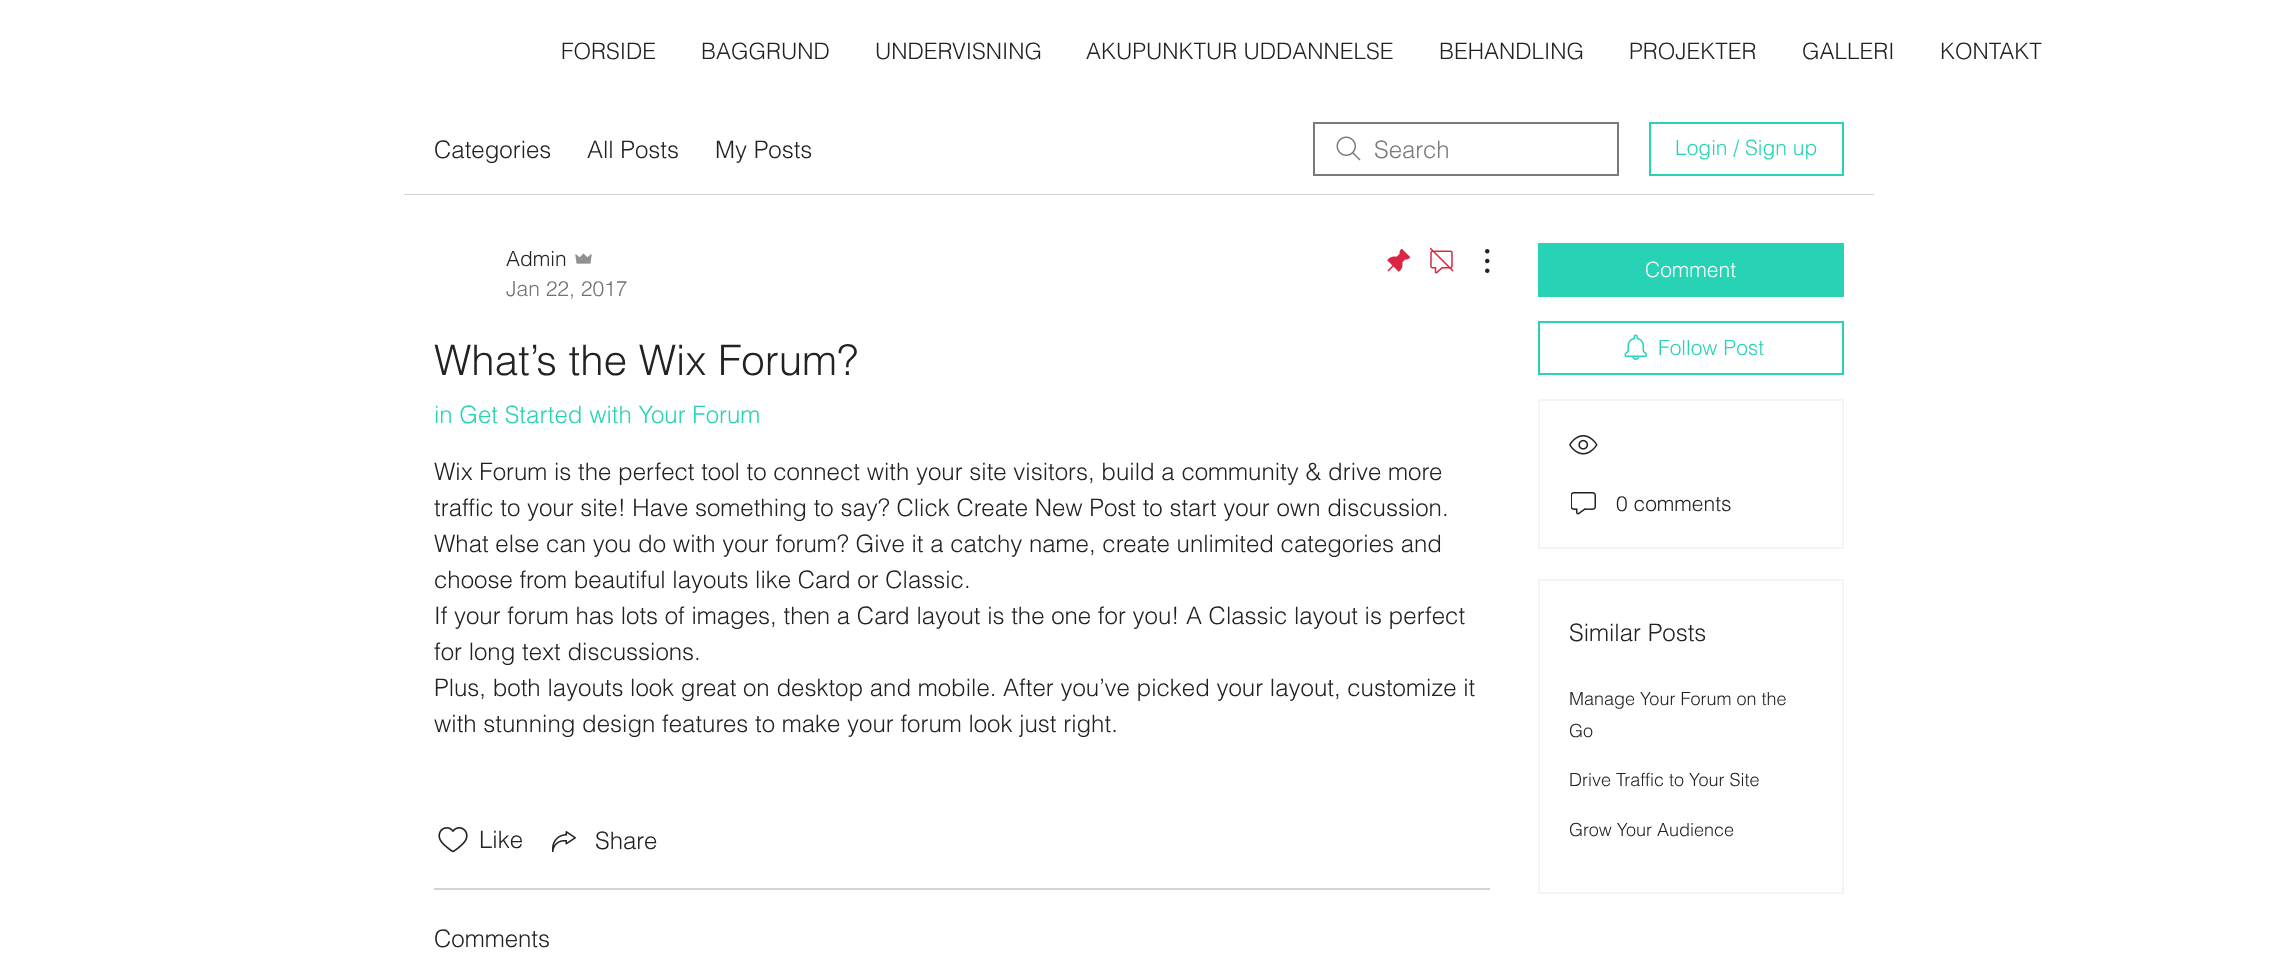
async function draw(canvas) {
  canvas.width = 2276;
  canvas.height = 958;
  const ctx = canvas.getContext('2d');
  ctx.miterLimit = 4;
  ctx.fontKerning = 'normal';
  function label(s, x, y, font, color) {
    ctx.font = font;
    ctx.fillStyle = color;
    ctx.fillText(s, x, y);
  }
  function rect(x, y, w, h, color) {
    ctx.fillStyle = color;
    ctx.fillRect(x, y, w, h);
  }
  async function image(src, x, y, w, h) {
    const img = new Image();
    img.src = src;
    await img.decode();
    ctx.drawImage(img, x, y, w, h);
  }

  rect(0, 0, 2276, 958, '#fff');
  label('FORSIDE', 561, 59, '300 22.5px helvetica', '#222');
  label('BAGGRUND', 701, 59, '300 22.5px helvetica', '#222');
  label('UNDERVISNING', 875, 59, '300 22.5px helvetica', '#222');
  label('AKUPUNKTUR UDDANNELSE', 1086, 59, '300 22.5px helvetica', '#222');
  label('BEHANDLING', 1439, 59, '300 22.5px helvetica', '#222');
  label('PROJEKTER', 1629, 59, '300 22.5px helvetica', '#222');
  label('GALLERI', 1802, 59, '300 22.5px helvetica', '#222');
  label('KONTAKT', 1940, 59, '300 22.5px helvetica', '#222');
  rect(404, 194, 1470, 1, '#d3d3d3');
  label('Categories', 434, 158, '300 24px helvetica', '#222');
  label('All Posts', 587, 158, '300 24px helvetica', '#222');
  label('My Posts', 715, 158, '300 24px helvetica', '#222');
  await image('assets/img1.png', 1336, 136, 25, 25);
  ctx.strokeStyle = '#7a7a7a';
  ctx.lineWidth = 2;
  ctx.strokeRect(1314, 123, 304, 52);
  label('Search', 1374, 158, '300 24px helvetica', '#7a7a7a');
  ctx.strokeStyle = '#27d3b4';
  ctx.strokeRect(1650, 123, 193, 52);
  label('Login / Sign up', 1675, 155, '300 21px helvetica', '#27d3b4');
  label('Admin', 506, 266, '300 21px helvetica', '#222');
  await image('assets/img2.png', 575, 253, 17, 11);
  label('Jan 22, 2017', 506, 296, '300 21px helvetica', '#727272');
  await image('assets/img3.png', 1387, 248, 24, 24);
  await image('assets/img4.png', 1430, 248, 24, 26);
  await image('assets/img5.png', 1485, 249, 5, 24);
  label('What’s the Wix Forum?', 434, 375, '300 42px helvetica', '#222');
  label('in Get Started with Your Forum', 434, 423, '300 24px helvetica', '#27d3b4');
  label('Wix Forum is the perfect tool to connect with your site visitors, build a community & drive more', 434, 480, '300 24px helvetica', '#222');
  label('traffic to your site! Have something to say? Click Create New Post to start your own discussion.', 434, 516, '300 24px helvetica', '#222');
  label('What else can you do with your forum? Give it a catchy name, create unlimited categories and', 434, 552, '300 24px helvetica', '#222');
  label('choose from beautiful layouts like Card or Classic.', 434, 588, '300 24px helvetica', '#222');
  label('If your forum has lots of images, then a Card layout is the one for you! A Classic layout is perfect', 434, 624, '300 24px helvetica', '#222');
  label('for long text discussions.', 434, 660, '300 24px helvetica', '#222');
  label('Plus, both layouts look great on desktop and mobile. After you’ve picked your layout, customize it', 434, 696, '300 24px helvetica', '#222');
  label('with stunning design features to make your forum look just right.', 434, 732, '300 24px helvetica', '#222');
  await image('assets/img6.png', 438, 827, 30, 26);
  label('Like', 479, 848, '300 24px helvetica', '#222');
  await image('assets/img7.png', 552, 831, 24, 21);
  label('Share', 595, 849, '300 24px helvetica', '#222');
  rect(434, 888, 1056, 2, '#d3d3d3');
  label('Comments', 434, 947, '300 24px helvetica', '#222');
  rect(1538, 243, 306, 54, '#27d3b4');
  label('Comment', 1645, 277, '300 21px helvetica', '#fff');
  ctx.strokeRect(1539, 322, 304, 52);
  await image('assets/img8.png', 1624, 334, 23, 26);
  label('Follow Post', 1658, 355, '300 21px helvetica', '#27d3b4');
  ctx.strokeStyle = '#f4f4f4';
  ctx.strokeRect(1539, 400, 304, 148);
  await image('assets/img9.png', 1569, 435, 29, 20);
  await image('assets/img10.png', 1571, 492, 25, 23);
  label('0 comments', 1616, 511, '300 21px helvetica', '#222');
  ctx.strokeRect(1539, 580, 304, 313);
  label('Similar Posts', 1569, 641, '300 24px helvetica', '#222');
  label('Manage Your Forum on the', 1569, 705, '300 18px helvetica', '#222');
  label('Go', 1569, 737, '300 18px helvetica', '#222');
  label('Drive Traffic to Your Site', 1569, 786, '300 18px helvetica', '#222');
  label('Grow Your Audience', 1569, 836, '300 18px helvetica', '#222');
}

draw(document.querySelector('canvas'));
